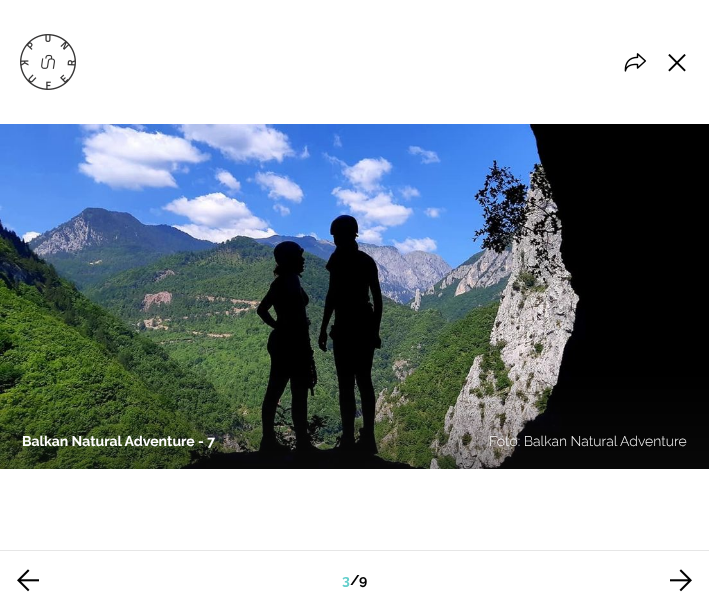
async function draw(canvas) {
  canvas.width = 709;
  canvas.height = 610;
  const ctx = canvas.getContext('2d');
  ctx.miterLimit = 4;
  ctx.fontKerning = 'normal';
  function label(s, x, y, font, color) {
    ctx.font = font;
    ctx.fillStyle = color;
    ctx.fillText(s, x, y);
  }
  function rect(x, y, w, h, color) {
    ctx.fillStyle = color;
    ctx.fillRect(x, y, w, h);
  }
  async function image(src, x, y, w, h) {
    const img = new Image();
    img.src = src;
    await img.decode();
    ctx.drawImage(img, x, y, w, h);
  }

  rect(0, 0, 709, 610, '#fff');
  await image('assets/img1.png', 20, 34, 56, 56);
  await image('assets/img2.png', 624, 53, 23, 19);
  await image('assets/img3.png', 668, 54, 18, 18);
  await image('assets/img4.png', 0, 124, 709, 345);
  label('Balkan Natural Adventure - 7', 22, 446, 'bold 14px Raleway', '#fff');
  label('Foto: Balkan Natural Adventure', 489, 446, '300 14px Raleway', '#fff');
  rect(0, 550, 709, 1, '#e6e6e6');
  await image('assets/img5.png', 17, 569, 22, 23);
  label('3', 342, 585, 'bold 14px Raleway', '#64cfcc');
  label('/', 350, 585, 'bold 14px Raleway', '#000');
  label('9', 359, 585, 'bold 14px Raleway', '#000');
  await image('assets/img6.png', 670, 569, 22, 23);
}

draw(document.querySelector('canvas'));
